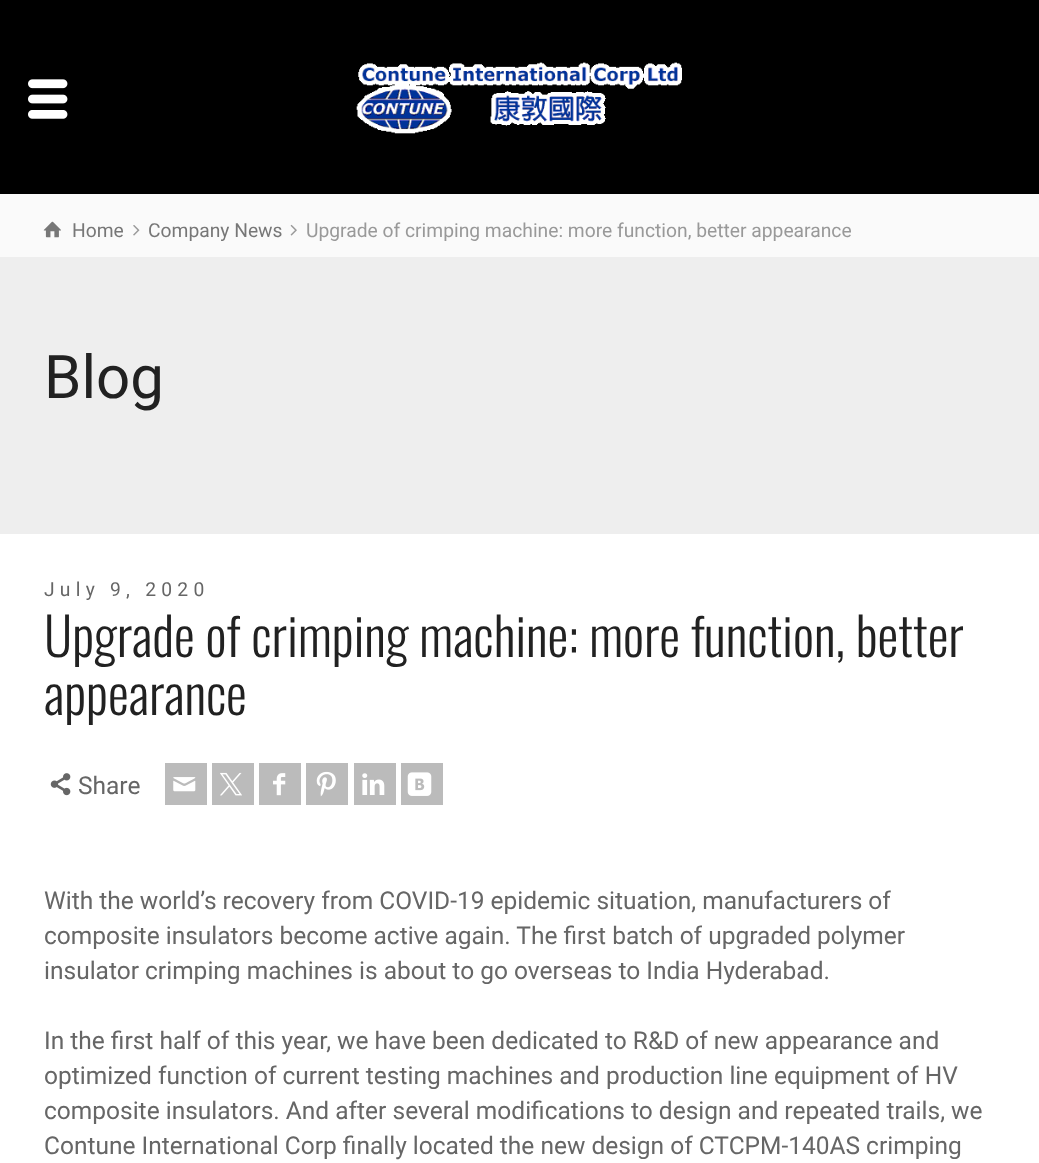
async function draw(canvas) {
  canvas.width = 1039;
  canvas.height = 1163;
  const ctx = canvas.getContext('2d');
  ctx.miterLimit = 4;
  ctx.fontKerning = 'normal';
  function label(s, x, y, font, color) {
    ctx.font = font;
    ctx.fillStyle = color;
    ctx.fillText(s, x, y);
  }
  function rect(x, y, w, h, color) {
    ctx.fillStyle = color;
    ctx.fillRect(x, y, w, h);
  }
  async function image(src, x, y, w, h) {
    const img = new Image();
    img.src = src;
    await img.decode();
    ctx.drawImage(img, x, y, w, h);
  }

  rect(0, 0, 1039, 1163, '#000');
  await image('assets/img1.png', 28, 79, 40, 40);
  await image('assets/img2.png', 356, 62, 326, 72);
  rect(0, 257, 1039, 277, '#eee');
  rect(0, 194, 1039, 63, '#fafafa');
  await image('assets/img3.png', 43, 221, 18, 17);
  label('Home', 72, 237, '19.25px Roboto', '#777');
  await image('assets/img4.png', 133, 225, 7, 11);
  label('Company News', 148, 237, '19.25px Roboto', '#777');
  await image('assets/img5.png', 290, 224, 7, 12);
  label('Upgrade of crimping machine: more function, better appearance', 306, 237, '19.25px Roboto', '#999');
  label('Blog', 44, 398, '60px Roboto', '#212121');
  rect(0, 534, 1039, 629, '#fff');
  ctx.letterSpacing = '5.25px';
  label('July 9, 2020', 44, 596, '19.25px Roboto', '#666');
  ctx.letterSpacing = '0px';
  label('Upgrade of crimping machine: more function, better', 44, 657, '300 52.5px Oswald', '#212121');
  label('appearance', 44, 715, '300 52.5px Oswald', '#212121');
  await image('assets/img6.png', 50, 773, 21, 23);
  label('Share', 78, 794, '24.5px Roboto', '#666');
  rect(165, 763, 42, 42, '#bbb');
  await image('assets/img7.png', 173, 777, 23, 15);
  rect(212, 763, 42, 42, '#bbb');
  await image('assets/img8.png', 220, 772, 22, 24);
  rect(259, 763, 42, 42, '#bbb');
  await image('assets/img9.png', 273, 773, 13, 23);
  rect(306, 763, 42, 42, '#bbb');
  await image('assets/img10.png', 316, 771, 20, 26);
  rect(354, 763, 42, 42, '#bbb');
  await image('assets/img11.png', 362, 773, 23, 22);
  rect(401, 763, 42, 42, '#bbb');
  await image('assets/img12.png', 407, 772, 25, 24);
  label('With the world’s recovery from COVID-19 epidemic situation, manufacturers of', 44, 909, '24.5px Roboto', '#666');
  label('composite insulators become active again. The first batch of upgraded polymer', 44, 944, '24.5px Roboto', '#666');
  label('insulator crimping machines is about to go overseas to India Hyderabad.', 44, 979, '24.5px Roboto', '#666');
  label('In the first half of this year, we have been dedicated to R&D of new appearance and', 44, 1049, '24.5px Roboto', '#666');
  label('optimized function of current testing machines and production line equipment of HV', 44, 1084, '24.5px Roboto', '#666');
  label('composite insulators. And after several modifications to design and repeated trails, we', 44, 1119, '24.5px Roboto', '#666');
  label('Contune International Corp finally located the new design of CTCPM-140AS crimping', 44, 1154, '24.5px Roboto', '#666');
}

draw(document.querySelector('canvas'));
